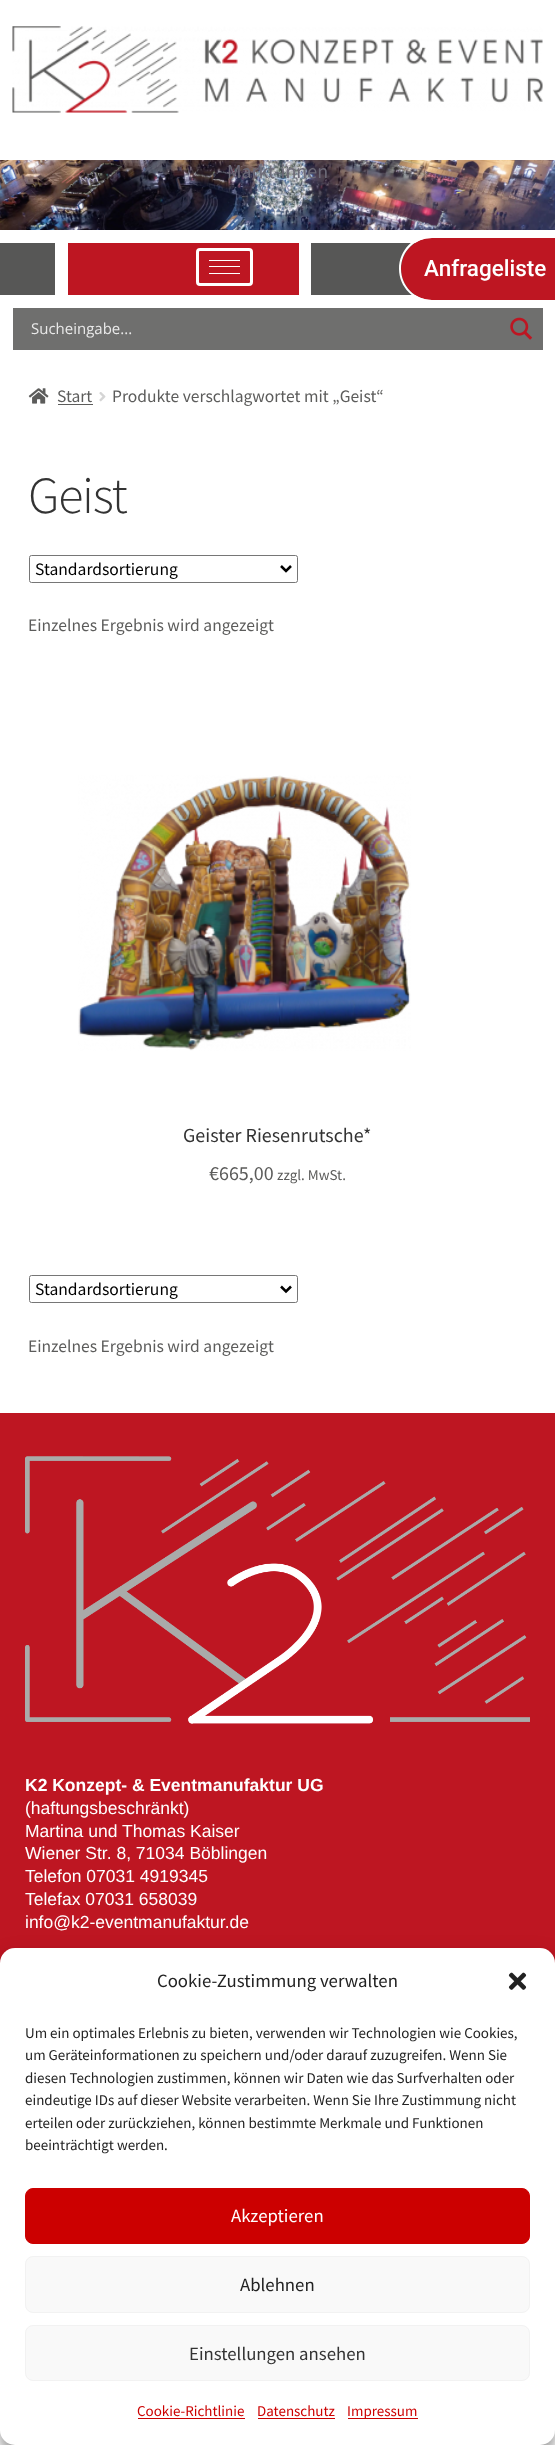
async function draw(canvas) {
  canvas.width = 555;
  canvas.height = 2445;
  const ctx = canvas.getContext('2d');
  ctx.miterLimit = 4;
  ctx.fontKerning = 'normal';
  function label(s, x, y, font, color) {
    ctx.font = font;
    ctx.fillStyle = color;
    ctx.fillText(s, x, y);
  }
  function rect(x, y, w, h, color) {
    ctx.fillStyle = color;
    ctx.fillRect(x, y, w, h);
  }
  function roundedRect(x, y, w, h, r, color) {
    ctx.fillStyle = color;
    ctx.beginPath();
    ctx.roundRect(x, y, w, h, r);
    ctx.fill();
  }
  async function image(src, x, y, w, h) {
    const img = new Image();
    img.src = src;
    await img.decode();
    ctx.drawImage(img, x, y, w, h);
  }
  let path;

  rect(0, 0, 555, 2445, '#fff');
  await image('assets/img1.png', 12, 26, 531, 87);
  await image('assets/img2.png', 0, 160, 555, 70);
  label('Markt-innen', 227, 178, '20px Source Sans Pro', '#6c6a77');
  rect(0, 243, 55, 52, '#575756');
  rect(68, 243, 231, 52, '#be1622');
  ctx.beginPath();
  ctx.roundRect(197.5, 249.5, 54, 35, 2.5);
  ctx.strokeStyle = '#fff';
  ctx.lineWidth = 3;
  ctx.stroke();
  rect(209, 260, 31, 1, '#fff');
  rect(209, 266, 31, 1, '#fff');
  rect(209, 273, 31, 1, '#fff');
  rect(311, 243, 105, 52, '#575756');
  ctx.fillStyle = '#be1622';
  ctx.beginPath();
  ctx.roundRect(401, 238, 154, 62, [31, 0, 0, 31]);
  ctx.fill();
  ctx.fillStyle = '#fff';
  path = new Path2D('M432 235H555V302H432C414 302 399 287 399 269C399 250 414 235 432 235ZM432 238H555V300H432C415 300 401 286 401 269C401 251 415 238 432 238Z');
  ctx.fill(path, 'evenodd');
  label('Anfrageliste', 424, 276, '500 22.5px Roboto', '#fff');
  rect(13, 308, 530, 42, '#6f6f6e');
  label('Sucheingabe...', 31, 334, '15px Open Sans', '#e9e9e9');
  await image('assets/img3.png', 510, 317, 23, 23);
  await image('assets/img4.png', 28, 388, 21, 16);
  label('Start', 57, 402, '17.5px Source Sans Pro', '#5c5c5b');
  rect(58, 404, 35, 1, '#5c5c5b');
  await image('assets/img5.png', 99, 392, 7, 10);
  label('Produkte verschlagwortet mit „Geist“', 112, 402, '17.5px Source Sans Pro', '#5c5c5b');
  ctx.letterSpacing = '-1.25px';
  label('Geist', 28, 513, '300 52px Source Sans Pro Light', '#333');
  ctx.beginPath();
  ctx.roundRect(29.5, 555.5, 268, 27, 2);
  ctx.strokeStyle = '#767676';
  ctx.lineWidth = 1;
  ctx.stroke();
  path = new Path2D('M281 566L286 571L291 566');
  ctx.strokeStyle = '#000';
  ctx.lineWidth = 2.5;
  ctx.stroke(path);
  ctx.letterSpacing = '0px';
  label('Standardsortierung', 35, 575, '17.5px Source Sans Pro', '#000');
  label('Einzelnes Ergebnis wird angezeigt', 28, 631, '17.5px Source Sans Pro', '#5c5c5b');
  await image('assets/img6.png', 78, 775, 333, 276);
  label('Geister Riesenrutsche*', 183, 1142, '20px Source Sans Pro', '#333');
  label('€665,00', 209, 1180, '20px Source Sans Pro', '#5c5c5b');
  label('zzgl. MwSt.', 277, 1180, '15px Source Sans Pro', '#5c5c5b');
  ctx.beginPath();
  ctx.roundRect(29.5, 1275.5, 268, 27, 2);
  ctx.strokeStyle = '#767676';
  ctx.lineWidth = 1;
  ctx.stroke();
  path = new Path2D('M281 1286.5L286 1291.5L291 1286.5');
  ctx.strokeStyle = '#000';
  ctx.lineWidth = 2.5;
  ctx.stroke(path);
  label('Standardsortierung', 35, 1295, '17.5px Source Sans Pro', '#000');
  label('Einzelnes Ergebnis wird angezeigt', 28, 1352, '17.5px Source Sans Pro', '#5c5c5b');
  rect(0, 1413, 555, 550, '#be1622');
  await image('assets/img7.png', 25, 1456, 505, 268);
  label('K2 Konzept- & Eventmanufaktur UG', 25, 1791, 'bold 17.5px Liberation Sans', '#fff');
  label('(haftungsbeschränkt)', 25, 1814, '17.5px Liberation Sans', '#fff');
  label('Martina und Thomas Kaiser', 25, 1837, '17.5px Liberation Sans', '#fff');
  label('Wiener Str. 8, 71034 Böblingen', 25, 1859, '17.5px Liberation Sans', '#fff');
  label('Telefon 07031 4919345', 25, 1882, '17.5px Liberation Sans', '#fff');
  label('Telefax 07031 658039', 25, 1905, '17.5px Liberation Sans', '#fff');
  label('info@k2-eventmanufaktur.de', 25, 1928, '17.5px Liberation Sans', '#fff');
  ctx.fillStyle = '#0000003b';
  ctx.filter = 'blur(4px)';
  ctx.beginPath();
  ctx.roundRect(0, 1955, 555, 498, 15);
  ctx.fill();
  ctx.filter = 'none';
  ctx.fillStyle = '#00000030';
  ctx.filter = 'blur(12.5px)';
  ctx.beginPath();
  ctx.roundRect(0, 1960, 555, 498, 15);
  ctx.fill();
  ctx.filter = 'none';
  roundedRect(0, 1948, 555, 497, 15, '#fff');
  label('Cookie-Zustimmung verwalten', 157, 1987, '18.75px Source Sans Pro', '#222');
  await image('assets/img8.png', 508, 1972, 19, 18);
  label('Um ein optimales Erlebnis zu bieten, verwenden wir Technologien wie Cookies,', 25, 2038, '15px Source Sans Pro', '#222');
  label('um Geräteinformationen zu speichern und/oder darauf zuzugreifen. Wenn Sie', 25, 2060, '15px Source Sans Pro', '#222');
  label('diesen Technologien zustimmen, können wir Daten wie das Surfverhalten oder', 25, 2083, '15px Source Sans Pro', '#222');
  label('eindeutige IDs auf dieser Website verarbeiten. Wenn Sie Ihre Zustimmung nicht', 25, 2105, '15px Source Sans Pro', '#222');
  label('erteilen oder zurückziehen, können bestimmte Merkmale und Funktionen', 25, 2128, '15px Source Sans Pro', '#222');
  label('beeinträchtigt werden.', 25, 2150, '15px Source Sans Pro', '#222');
  ctx.fillStyle = '#c00';
  ctx.beginPath();
  ctx.roundRect(25.5, 2188.5, 504, 55, 7.5);
  ctx.fill();
  ctx.strokeStyle = '#c00';
  ctx.lineWidth = 1;
  ctx.stroke();
  label('Akzeptieren', 231, 2222, '18.75px Source Sans Pro', '#fff');
  ctx.fillStyle = '#f9f9f9';
  ctx.beginPath();
  ctx.roundRect(25.5, 2256.5, 504, 56, 7.5);
  ctx.fill();
  ctx.strokeStyle = '#f2f2f2';
  ctx.stroke();
  label('Ablehnen', 240, 2291, '18.75px Source Sans Pro', '#222');
  ctx.fillStyle = '#f9f9f9';
  ctx.beginPath();
  ctx.roundRect(25.5, 2325.5, 504, 55, 7.5);
  ctx.fill();
  ctx.stroke();
  label('Einstellungen ansehen', 189, 2360, '18.75px Source Sans Pro', '#333');
  label('Cookie-Richtlinie', 137, 2416, '15px Source Sans Pro', '#c00');
  rect(138, 2418, 107, 1, '#c00');
  label('Datenschutz', 257, 2416, '15px Source Sans Pro', '#c00');
  rect(258, 2418, 77, 1, '#c00');
  rect(348, 2418, 70, 1, '#c00');
  label('Impressum', 347, 2416, '15px Source Sans Pro', '#c00');
}

draw(document.querySelector('canvas'));
